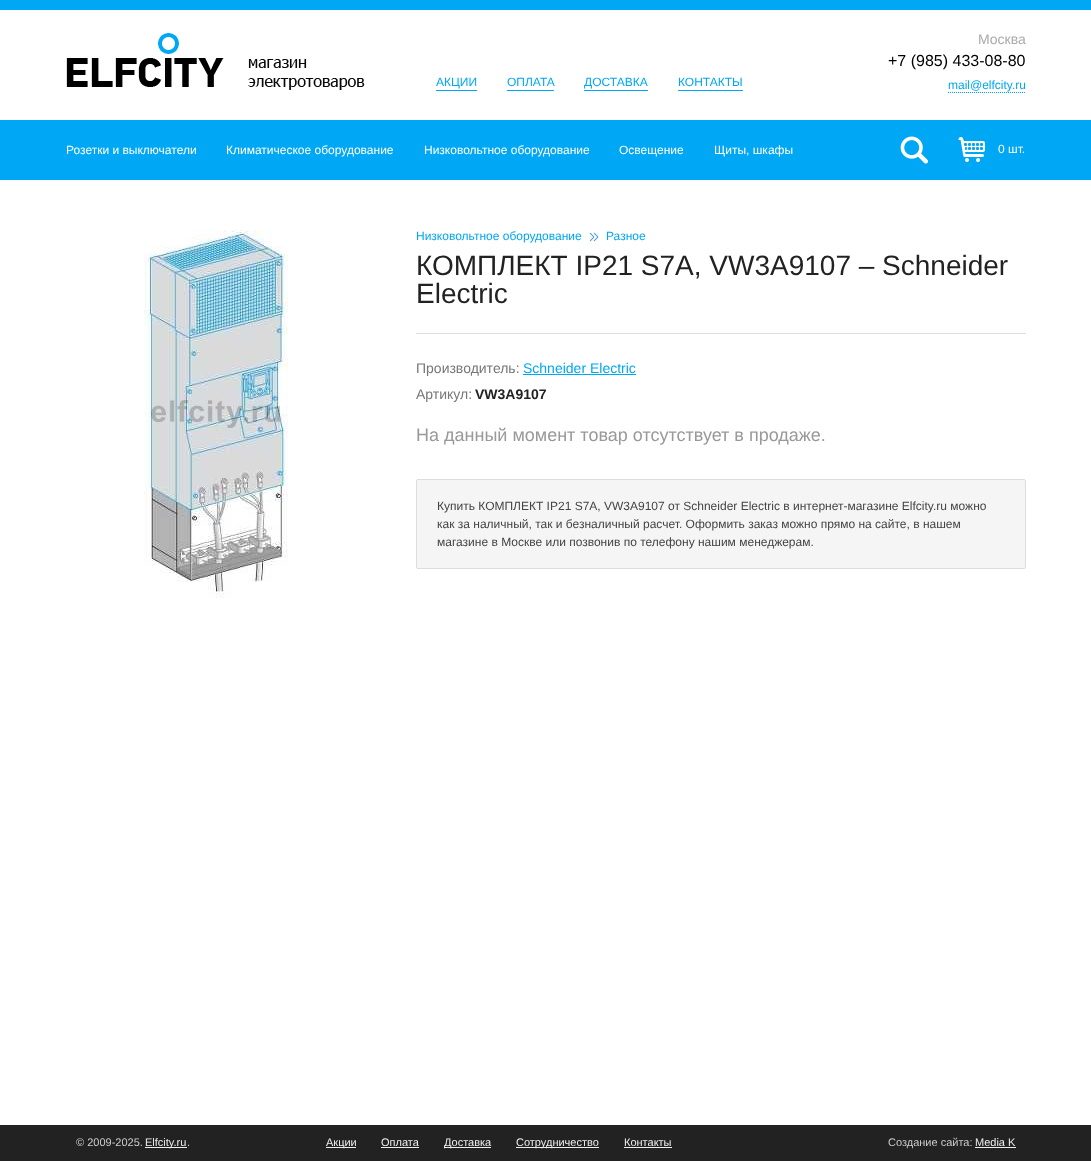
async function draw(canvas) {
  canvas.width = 1091;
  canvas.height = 1161;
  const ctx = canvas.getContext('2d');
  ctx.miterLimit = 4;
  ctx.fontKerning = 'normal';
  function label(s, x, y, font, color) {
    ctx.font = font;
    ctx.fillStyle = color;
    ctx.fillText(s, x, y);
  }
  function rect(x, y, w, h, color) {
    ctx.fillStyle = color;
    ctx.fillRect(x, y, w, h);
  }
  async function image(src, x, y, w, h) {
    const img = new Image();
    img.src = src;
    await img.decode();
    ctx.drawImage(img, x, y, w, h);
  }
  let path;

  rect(0, 0, 1091, 1161, '#fff');
  rect(0, 0, 1091, 10, '#00a7f4');
  await image('assets/img1.png', 66, 33, 299, 57);
  label('АКЦИИ', 436, 86, '12px Liberation Sans', '#00a7f4');
  rect(436, 90, 41, 1, '#00a7f4');
  label('ОПЛАТА', 507, 86, '12px Liberation Sans', '#00a7f4');
  rect(507, 90, 47, 1, '#00a7f4');
  label('ДОСТАВКА', 584, 86, '12px Liberation Sans', '#00a7f4');
  rect(584, 90, 64, 1, '#00a7f4');
  label('КОНТАКТЫ', 678, 86, '12px Liberation Sans', '#00a7f4');
  rect(678, 90, 65, 1, '#00a7f4');
  label('Москва', 978, 44, '14px Liberation Sans', '#aaa');
  label('+7 (985) 433-08-80', 888, 66, '16px Liberation Sans', '#000');
  label('mail@elfcity.ru', 948, 89, '12px Liberation Sans', '#00a7f4');
  path = new Path2D('M948 92.5H1026');
  ctx.strokeStyle = '#00a7f4';
  ctx.setLineDash([1, 1]);
  ctx.stroke(path);
  rect(0, 120, 1091, 60, '#00a7f4');
  label('Розетки и выключатели', 66, 154, '12px Liberation Sans', '#fff');
  label('Климатическое оборудование', 226, 154, '12px Liberation Sans', '#fff');
  label('Низковольтное оборудование', 424, 154, '12px Liberation Sans', '#fff');
  label('Освещение', 619, 154, '12px Liberation Sans', '#fff');
  label('Щиты, шкафы', 714, 154, '12px Liberation Sans', '#fff');
  await image('assets/img2.png', 900, 136, 28, 28);
  await image('assets/img3.png', 958, 137, 27, 25);
  label('0 шт.', 998, 153, '12px Liberation Sans', '#fff');
  await image('assets/img4.png', 144, 230, 144, 368);
  label('Низковольтное оборудование', 416, 240, '12px Liberation Sans', '#00a7f4');
  await image('assets/img5.png', 589, 232, 10, 10);
  label('Разное', 606, 240, '12px Liberation Sans', '#00a7f4');
  rect(416, 333, 610, 1, '#ddd');
  label('КОМПЛЕКТ IP21 S7A, VW3A9107 – Schneider', 416, 275, '28px Liberation Sans', '#222');
  label('Electric', 416, 303, '28px Liberation Sans', '#222');
  label('Производитель:', 416, 373, '14px Liberation Sans', '#777');
  label('Schneider Electric', 523, 373, '14px Liberation Sans', '#00a7f4');
  rect(523, 374, 113, 1, '#00a7f4');
  label('Артикул:', 416, 399, '14px Liberation Sans', '#777');
  label('VW3A9107', 475, 399, 'bold 14px Liberation Sans', '#222');
  label('На данный момент товар отсутствует в продаже.', 416, 441, '18px Liberation Sans', '#999');
  ctx.fillStyle = '#f5f5f5';
  ctx.beginPath();
  ctx.roundRect(416.5, 479.5, 609, 89, 1.5);
  ctx.fill();
  ctx.strokeStyle = '#ddd';
  ctx.setLineDash([]);
  ctx.stroke();
  label('Купить КОМПЛЕКТ IP21 S7A, VW3A9107 от Schneider Electric в интернет-магазине Elfcity.ru можно', 437, 510, '12px Liberation Sans', '#444');
  label('как за наличный, так и безналичный расчет. Оформить заказ можно прямо на сайте, в нашем', 437, 528, '12px Liberation Sans', '#444');
  label('магазине в Москве или позвонив по телефону нашим менеджерам.', 437, 546, '12px Liberation Sans', '#444');
  rect(0, 1125, 1091, 36, '#222');
  label('© 2009-2025.', 76, 1146, '11px Liberation Sans', '#ccc');
  rect(145, 1147, 42, 1, '#eee');
  label('Elfcity.ru', 145, 1146, '11px Liberation Sans', '#eee');
  label('.', 187, 1146, '11px Liberation Sans', '#ccc');
  rect(326, 1147, 30, 1, '#eee');
  label('Акции', 326, 1146, '11px Liberation Sans', '#eee');
  label('Оплата', 381, 1146, '11px Liberation Sans', '#eee');
  rect(381, 1147, 38, 1, '#eee');
  rect(444, 1147, 47, 1, '#eee');
  label('Доставка', 444, 1146, '11px Liberation Sans', '#eee');
  rect(516, 1147, 83, 1, '#eee');
  label('Сотрудничество', 516, 1146, '11px Liberation Sans', '#eee');
  label('Контакты', 624, 1146, '11px Liberation Sans', '#eee');
  rect(624, 1147, 48, 1, '#eee');
  label('Cоздание сайта:', 888, 1146, '11px Liberation Sans', '#ccc');
  label('Media K', 975, 1146, '11px Liberation Sans', '#eee');
  rect(975, 1147, 41, 1, '#eee');
}

draw(document.querySelector('canvas'));
